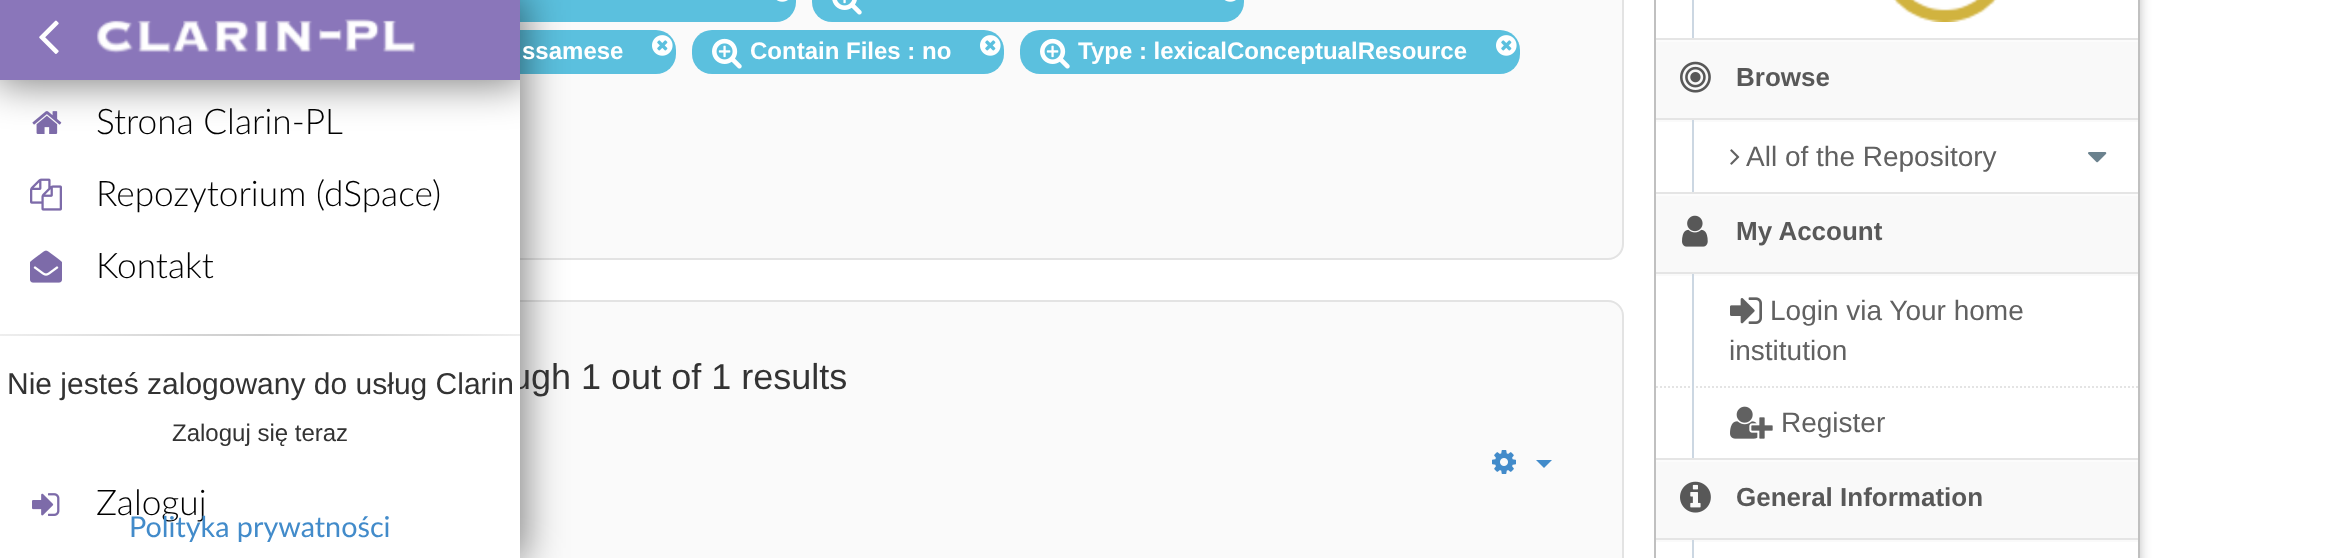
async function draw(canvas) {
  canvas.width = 2338;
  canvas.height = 558;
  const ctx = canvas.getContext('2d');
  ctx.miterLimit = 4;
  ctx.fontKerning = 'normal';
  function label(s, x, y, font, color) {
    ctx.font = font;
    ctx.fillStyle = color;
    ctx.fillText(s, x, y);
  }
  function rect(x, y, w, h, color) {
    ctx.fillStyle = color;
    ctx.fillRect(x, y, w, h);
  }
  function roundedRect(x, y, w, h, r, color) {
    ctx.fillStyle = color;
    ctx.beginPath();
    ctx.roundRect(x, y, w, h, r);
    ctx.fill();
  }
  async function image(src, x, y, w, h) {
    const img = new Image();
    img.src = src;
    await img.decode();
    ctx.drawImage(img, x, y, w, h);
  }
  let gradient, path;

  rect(0, 0, 2338, 558, '#fff');
  ctx.save();
  ctx.beginPath();
  ctx.rect(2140, 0, 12, 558);
  ctx.clip();
  ctx.fillStyle = '#c0c0c0';
  ctx.filter = 'blur(6px)';
  ctx.beginPath();
  ctx.rect(200, -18, 1940, 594);
  ctx.fill();
  ctx.filter = 'none';
  ctx.restore();
  ctx.fillStyle = '#fafafa';
  ctx.beginPath();
  ctx.roundRect(233, -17, 1390, 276, 15);
  ctx.fill();
  ctx.strokeStyle = '#e3e3e3';
  ctx.lineWidth = 2;
  ctx.stroke();
  roundedRect(314, -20, 482, 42, 20, '#5bc0de');
  roundedRect(314, 30, 362, 44, 20, '#5bc0de');
  ctx.fillStyle = '#fafafa';
  ctx.beginPath();
  ctx.roundRect(233, 301, 1390, 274, 15);
  ctx.fill();
  ctx.stroke();
  ctx.fillStyle = '#00000080';
  ctx.filter = 'blur(20px)';
  ctx.beginPath();
  ctx.rect(-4, -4, 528, 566);
  ctx.fill();
  ctx.filter = 'none';
  label('ugh 1 out of 1 results', 511, 389, '36px Liberation Sans', '#333');
  rect(0, 80, 520, 478, '#fff');
  ctx.save();
  ctx.beginPath();
  ctx.rect(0, 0, 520, 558);
  ctx.clip();
  ctx.fillStyle = '#00000080';
  ctx.filter = 'blur(20px)';
  ctx.beginPath();
  ctx.rect(-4, -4, 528, 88);
  ctx.fill();
  ctx.filter = 'none';
  ctx.restore();
  rect(0, 0, 520, 80, '#8a76ba');
  await image('assets/img1.png', 39, 20, 20, 34);
  await image('assets/img2.png', 96, 19, 320, 35);
  await image('assets/img3.png', 32, 111, 30, 23);
  label('Strona Clarin-PL', 96, 134, '300 35.25px Lato', '#000');
  await image('assets/img4.png', 30, 178, 32, 33);
  label('Repozytorium (dSpace)', 96, 206, '300 35.25px Lato', '#000');
  await image('assets/img5.png', 30, 250, 32, 33);
  label('Kontakt', 96, 278, '300 35.25px Lato', '#000');
  gradient = ctx.createLinearGradient(0, 335, 520, 335);
  gradient.addColorStop(0, '#eee');
  gradient.addColorStop(0.5, '#ccc');
  gradient.addColorStop(1, '#eee');
  ctx.fillStyle = gradient;
  ctx.fillRect(0, 334, 520, 2);
  label('Nie jesteś zalogowany do usług Clarin', 7, 394, '30px Liberation Sans', '#333');
  label('Zaloguj się teraz', 172, 441, '24px Liberation Sans', '#333');
  await image('assets/img6.png', 32, 493, 28, 23);
  label('Zaloguj', 96, 515, '300 35.25px Lato', '#000');
  label('Polityka prywatności', 129, 537, '28.75px Lato', '#428bca');
  rect(2138, 0, 2, 558, '#c0c0c0');
  await image('assets/img7.png', 776, 0, 12, 2);
  roundedRect(812, -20, 432, 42, 20, '#5bc0de');
  await image('assets/img8.png', 832, 0, 30, 15);
  await image('assets/img7.png', 1224, 0, 12, 2);
  label('ssamese', 522, 59, 'bold 24px Liberation Sans', '#fff');
  await image('assets/img9.png', 652, 35, 21, 21);
  roundedRect(692, 30, 312, 44, 20, '#5bc0de');
  await image('assets/img10.png', 712, 38, 30, 31);
  label('Contain Files : no', 750, 59, 'bold 24px Liberation Sans', '#fff');
  await image('assets/img9.png', 980, 35, 21, 21);
  roundedRect(1020, 30, 500, 44, 20, '#5bc0de');
  await image('assets/img10.png', 1040, 38, 30, 31);
  label('Type : lexicalConceptualResource', 1078, 59, 'bold 24px Liberation Sans', '#fff');
  await image('assets/img9.png', 1496, 35, 21, 21);
  await image('assets/img11.png', 1492, 450, 24, 24);
  ctx.fillStyle = '#428bca';
  path = new Path2D('M1536 460H1552L1544 468Z');
  ctx.fill(path);
  rect(1654, 0, 2, 558, '#c0c0c0');
  rect(1656, 38, 482, 2, '#e5e5e5');
  rect(1692, 0, 2, 38, '#ccd7e2');
  await image('assets/img12.png', 1893, 0, 104, 22);
  rect(1656, 40, 482, 2, '#fcfcfc');
  rect(1656, 192, 482, 2, '#e5e5e5');
  rect(1656, 42, 482, 76, '#f9f9f9');
  await image('assets/img13.png', 1680, 61, 31, 32);
  label('Browse', 1736, 86, 'bold 26px Liberation Sans', '#585858');
  rect(1656, 118, 482, 2, '#e5e5e5');
  rect(1656, 120, 482, 2, '#fafafa');
  rect(1692, 120, 2, 72, '#ccd7e2');
  await image('assets/img14.png', 1730, 149, 10, 16);
  label('All of the Repository', 1746, 166, '28px Liberation Sans', '#616161');
  await image('assets/img15.png', 2088, 152, 19, 11);
  rect(1656, 194, 482, 2, '#fcfcfc');
  rect(1656, 458, 482, 2, '#e5e5e5');
  rect(1656, 196, 482, 76, '#f9f9f9');
  await image('assets/img16.png', 1682, 215, 26, 32);
  label('My Account', 1736, 240, 'bold 26px Liberation Sans', '#585858');
  rect(1656, 272, 482, 2, '#e5e5e5');
  rect(1656, 274, 482, 2, '#fafafa');
  path = new Path2D('M1656 387H2138');
  ctx.strokeStyle = '#e4e4e4';
  ctx.setLineDash([2, 2]);
  ctx.stroke(path);
  rect(1692, 274, 2, 184, '#ccd7e2');
  await image('assets/img17.png', 1730, 297, 32, 27);
  label('Login via Your home', 1770, 320, '28px Liberation Sans', '#616161');
  label('institution', 1729, 360, '28px Liberation Sans', '#616161');
  await image('assets/img18.png', 1730, 406, 43, 33);
  label('Register', 1781, 432, '28px Liberation Sans', '#616161');
  rect(1656, 460, 482, 2, '#fcfcfc');
  rect(1656, 462, 482, 76, '#f9f9f9');
  await image('assets/img19.png', 1680, 481, 31, 32);
  label('General Information', 1736, 506, 'bold 26px Liberation Sans', '#585858');
  rect(1656, 538, 482, 2, '#e5e5e5');
  rect(1656, 540, 482, 2, '#fafafa');
  rect(1692, 540, 2, 18, '#ccd7e2');
}

draw(document.querySelector('canvas'));
